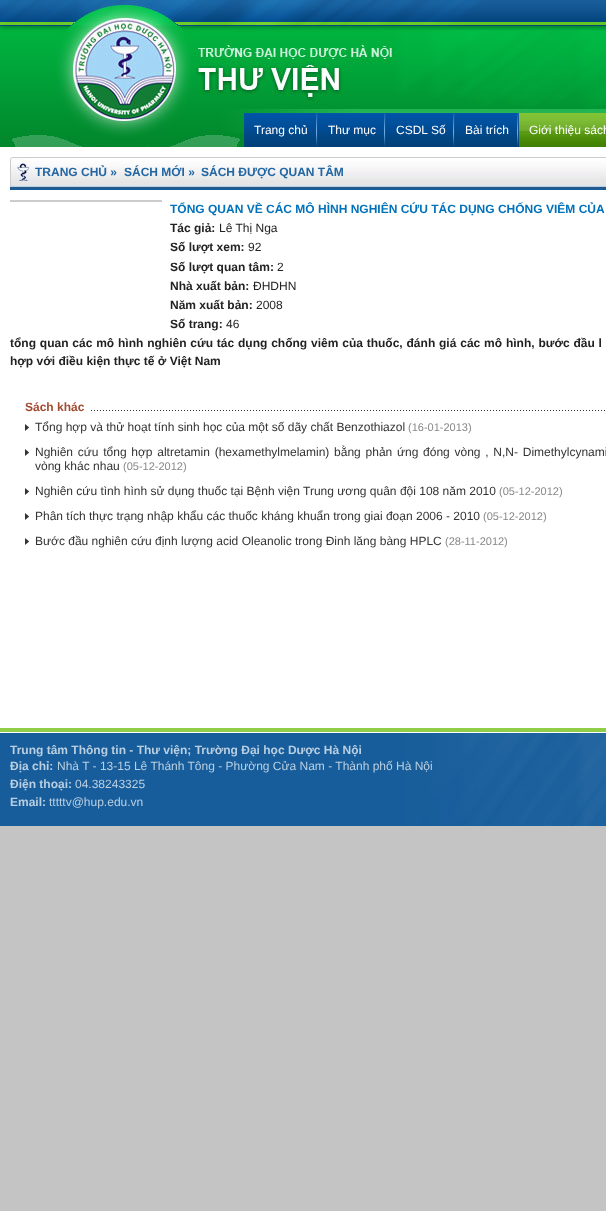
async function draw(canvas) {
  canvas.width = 606;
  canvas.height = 1211;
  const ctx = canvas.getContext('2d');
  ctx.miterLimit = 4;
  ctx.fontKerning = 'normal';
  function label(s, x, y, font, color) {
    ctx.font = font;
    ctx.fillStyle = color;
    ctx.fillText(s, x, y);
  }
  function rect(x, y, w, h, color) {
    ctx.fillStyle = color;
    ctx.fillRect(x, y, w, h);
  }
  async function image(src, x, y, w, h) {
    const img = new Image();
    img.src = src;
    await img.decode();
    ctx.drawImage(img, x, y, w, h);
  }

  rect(0, 0, 606, 1211, '#c4c4c4');
  rect(0, 147, 606, 581, '#fff');
  await image('assets/img1.png', 0, 0, 606, 147);
  await image('assets/img2.png', 252, 113, 265, 34);
  await image('assets/img3.png', 244, 113, 8, 34);
  await image('assets/img4.png', 316, 113, 2, 34);
  label('Trang chủ', 254, 134, '12px Liberation Sans', '#fff');
  await image('assets/img4.png', 384, 113, 2, 34);
  label('Thư mục', 328, 134, '12px Liberation Sans', '#fff');
  await image('assets/img4.png', 453, 113, 2, 34);
  label('CSDL Số', 396, 134, '12px Liberation Sans', '#fff');
  await image('assets/img4.png', 517, 113, 2, 34);
  label('Bài trích', 465, 134, '12px Liberation Sans', '#fff');
  await image('assets/img5.png', 519, 113, 87, 34);
  label('Giới thiệu sách', 529, 134, '12px Liberation Sans', '#fff');
  await image('assets/img6.png', 10, 157, 596, 33);
  await image('assets/img7.png', 35, 166, 7, 15);
  label('TRANG CHỦ »', 35, 176, 'bold 12px Liberation Sans', '#2266a3');
  label('SÁCH MỚI »', 124, 176, 'bold 12px Liberation Sans', '#2266a3');
  label('SÁCH ĐƯỢC QUAN TÂM', 201, 176, 'bold 12px Liberation Sans', '#2266a3');
  rect(10, 200, 152, 2, '#ccc');
  label('TỔNG QUAN VỀ CÁC MÔ HÌNH NGHIÊN CỨU TÁC DỤNG CHỐNG VIÊM CỦA', 170, 213, 'bold 12px Liberation Sans', '#0072bc');
  label('Tác giả:', 170, 232, 'bold 12px Liberation Sans', '#222');
  label('Lê Thị Nga', 219, 232, '12px Liberation Sans', '#222');
  label('Số lượt xem:', 170, 251, 'bold 12px Liberation Sans', '#222');
  label('92', 248, 251, '12px Liberation Sans', '#222');
  label('Số lượt quan tâm:', 170, 271, 'bold 12px Liberation Sans', '#222');
  label('2', 277, 271, '12px Liberation Sans', '#222');
  label('Nhà xuất bản:', 170, 290, 'bold 12px Liberation Sans', '#222');
  label('ĐHDHN', 253, 290, '12px Liberation Sans', '#222');
  label('Năm xuất bản:', 170, 309, 'bold 12px Liberation Sans', '#222');
  label('2008', 256, 309, '12px Liberation Sans', '#222');
  label('Số trang:', 170, 328, 'bold 12px Liberation Sans', '#222');
  label('46', 226, 328, '12px Liberation Sans', '#222');
  ctx.wordSpacing = '0.5px';
  label('tổng quan các mô hình nghiên cứu tác dụng chống viêm của thuốc, đánh giá các mô hình, bước đầu l', 10, 347, 'bold 12px Liberation Sans', '#222');
  ctx.wordSpacing = '0px';
  label('hợp với điều kiện thực tế ở Việt Nam', 10, 365, 'bold 12px Liberation Sans', '#222');
  await image('assets/img8.png', 89, 410, 516, 1);
  label('Sách khác', 25, 411, 'bold 12px Liberation Sans', '#a14c32');
  await image('assets/img9.png', 25, 424, 4, 7);
  label('Tổng hợp và thử hoạt tính sinh học của một số dãy chất Benzothiazol', 35, 431, '12px Liberation Sans', '#333');
  label('(16-01-2013)', 408, 431, '11px Liberation Sans', '#888');
  await image('assets/img9.png', 25, 449, 4, 7);
  ctx.wordSpacing = '1.4px';
  label('Nghiên cứu tổng hợp altretamin (hexamethylmelamin) bằng phản ứng đóng vòng , N,N- Dimethylcynami', 35, 456, '12px Liberation Sans', '#333');
  ctx.wordSpacing = '0px';
  label('vòng khác nhau', 35, 470, '12px Liberation Sans', '#333');
  label('(05-12-2012)', 123, 470, '11px Liberation Sans', '#888');
  await image('assets/img9.png', 25, 488, 4, 7);
  label('Nghiên cứu tình hình sử dụng thuốc tại Bệnh viện Trung ương quân đội 108 năm 2010', 35, 495, '12px Liberation Sans', '#333');
  label('(05-12-2012)', 499, 495, '11px Liberation Sans', '#888');
  await image('assets/img9.png', 25, 513, 4, 7);
  label('Phân tích thực trạng nhập khẩu các thuốc kháng khuẩn trong giai đoạn 2006 - 2010', 35, 520, '12px Liberation Sans', '#333');
  label('(05-12-2012)', 483, 520, '11px Liberation Sans', '#888');
  await image('assets/img9.png', 25, 538, 4, 7);
  label('Bước đầu nghiên cứu định lượng acid Oleanolic trong Đinh lăng bàng HPLC', 35, 545, '12px Liberation Sans', '#333');
  label('(28-11-2012)', 445, 545, '11px Liberation Sans', '#888');
  await image('assets/img10.png', 0, 728, 606, 98);
  label('Trung tâm Thông tin - Thư viện; Trường Đại học Dược Hà Nội', 10, 754, 'bold 12px Liberation Sans', '#bacfe1');
  label('Địa chỉ:', 10, 770, 'bold 12px Liberation Sans', '#bacfe1');
  label('Nhà T - 13-15 Lê Thánh Tông - Phường Cửa Nam - Thành phố Hà Nội', 57, 770, '12px Liberation Sans', '#bacfe1');
  label('Điện thoại:', 10, 788, 'bold 12px Liberation Sans', '#bacfe1');
  label('04.38243325', 75, 788, '12px Liberation Sans', '#bacfe1');
  label('Email:', 10, 806, 'bold 12px Liberation Sans', '#bacfe1');
  label('tttttv@hup.edu.vn', 49, 806, '12px Liberation Sans', '#bacfe1');
}

draw(document.querySelector('canvas'));
